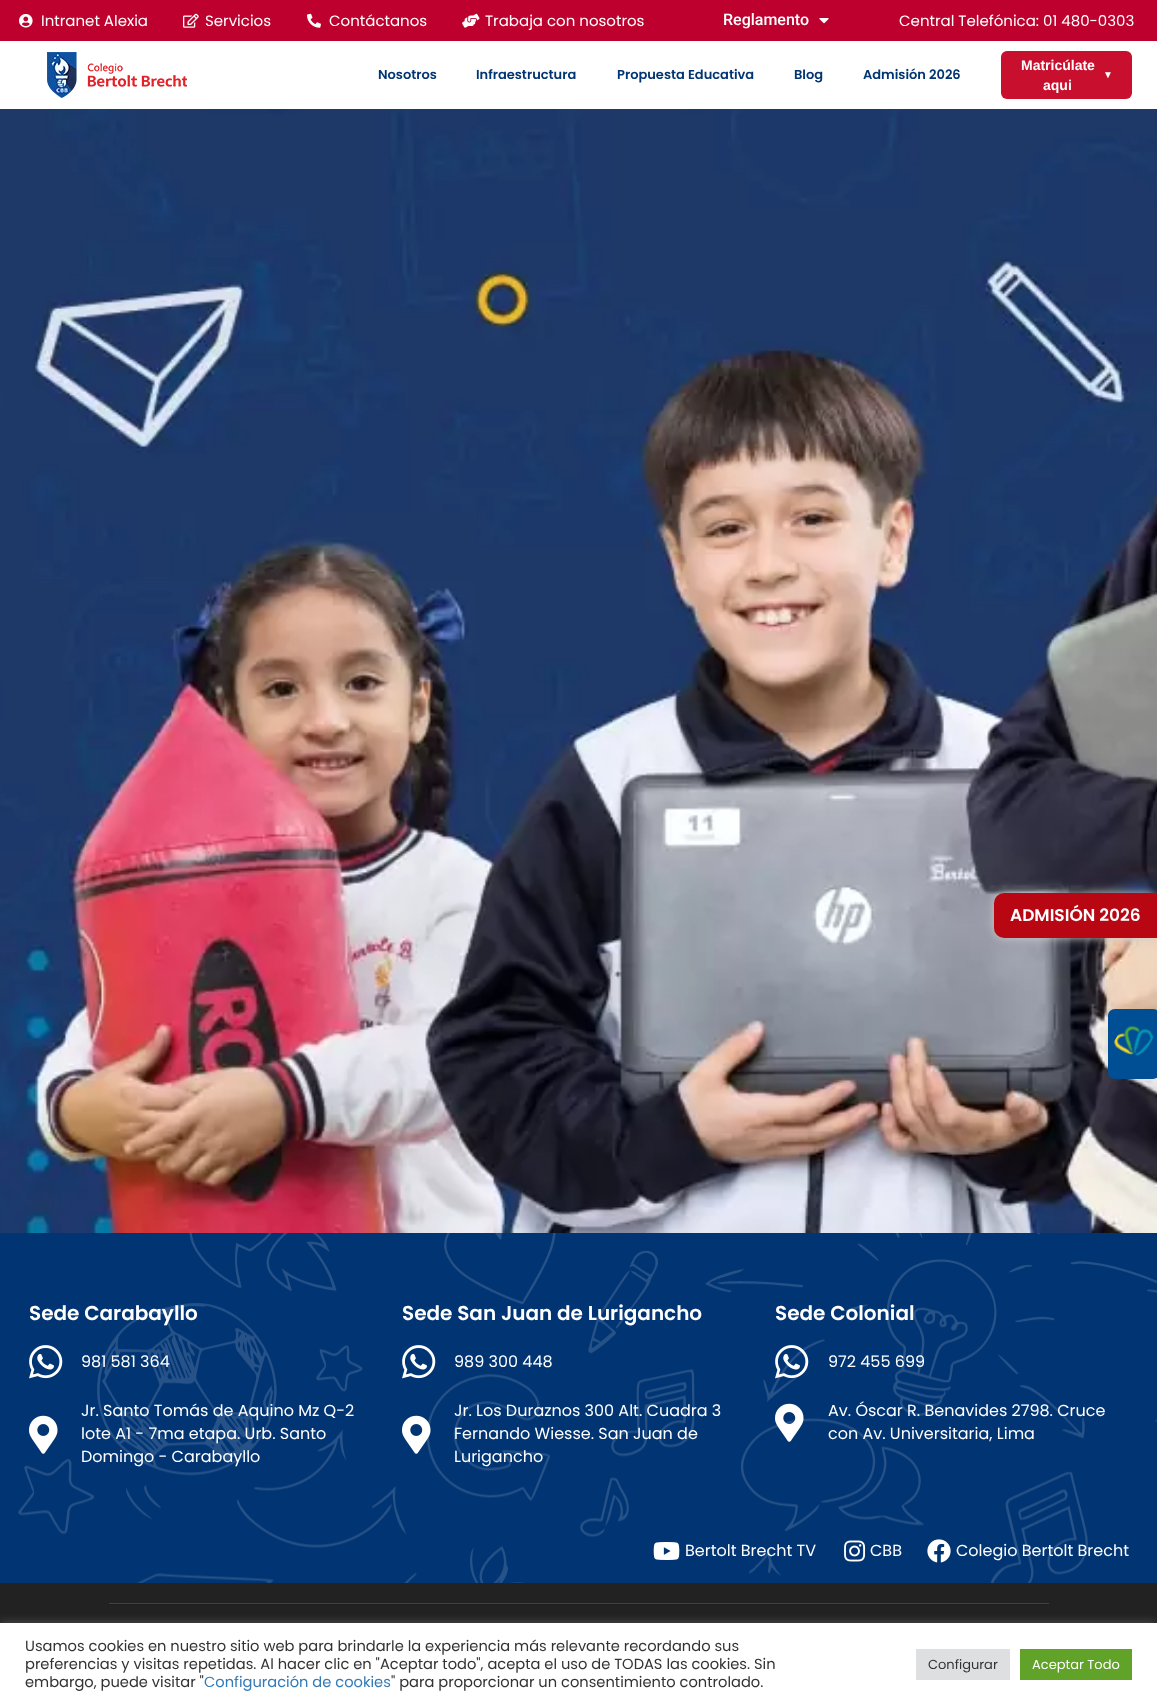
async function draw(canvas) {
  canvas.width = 1157;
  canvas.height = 1705;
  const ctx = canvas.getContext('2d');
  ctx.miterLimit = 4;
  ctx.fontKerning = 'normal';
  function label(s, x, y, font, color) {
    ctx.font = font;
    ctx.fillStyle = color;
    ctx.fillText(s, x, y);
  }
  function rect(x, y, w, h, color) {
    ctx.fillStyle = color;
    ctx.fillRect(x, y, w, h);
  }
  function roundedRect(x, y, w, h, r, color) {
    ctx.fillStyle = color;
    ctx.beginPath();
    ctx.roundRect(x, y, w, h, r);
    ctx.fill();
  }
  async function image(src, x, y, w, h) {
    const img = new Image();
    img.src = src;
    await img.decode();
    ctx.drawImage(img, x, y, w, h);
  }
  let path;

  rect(0, 0, 1157, 1705, '#fff');
  rect(0, 0, 1157, 41, '#be002e');
  await image('assets/img1.png', 19, 14, 14, 14);
  label('Intranet Alexia', 41, 26, '15px Poppins', '#fff');
  await image('assets/img2.png', 183, 13, 16, 15);
  label('Servicios', 205, 26, '15px Poppins', '#fff');
  await image('assets/img3.png', 307, 13, 14, 15);
  label('Contáctanos', 329, 26, '15px Poppins', '#fff');
  await image('assets/img4.png', 462, 13, 18, 15);
  label('Trabaja con nosotros', 485, 26, '15px Poppins', '#fff');
  label('Reglamento', 723, 25, '500 16px Roboto', '#fff');
  await image('assets/img5.png', 819, 18, 10, 6);
  label('Central Telefónica: 01 480-0303', 899, 26, '15px Poppins', '#fff');
  await image('assets/img6.png', 47, 52, 140, 46);
  label('Nosotros', 378, 79, '600 13px Poppins', '#003473');
  label('Infraestructura', 476, 79, '600 13px Poppins', '#003473');
  label('Propuesta Educativa', 617, 79, '600 13px Poppins', '#003473');
  label('Blog', 794, 79, '600 13px Poppins', '#003473');
  label('Admisión 2026', 863, 79, '600 13px Poppins', '#003473');
  roundedRect(1001, 51, 131, 48, 6, '#c8102e');
  label('Matricúlate', 1021, 70, 'bold 14px Liberation Sans', '#fff');
  label('▼', 1103, 78, 'bold 10px Liberation Sans', '#fff');
  label('aqui', 1043, 90, 'bold 14px Liberation Sans', '#fff');
  await image('assets/img7.png', 0, 109, 1157, 1124);
  ctx.fillStyle = '#c9c9c9';
  ctx.filter = 'blur(5px)';
  ctx.beginPath();
  ctx.roundRect(994, 893, 163, 45, 10);
  ctx.fill();
  ctx.filter = 'none';
  ctx.fillStyle = '#b80712';
  ctx.beginPath();
  ctx.roundRect(994, 893, 163, 45, [10, 0, 0, 10]);
  ctx.fill();
  label('ADMISIÓN 2026', 1010, 921, '600 17px Poppins', '#fff');
  ctx.fillStyle = '#004e94';
  path = new Path2D('M1108 1072V1016C1108 1012 1111 1009 1115 1009H1153C1157 1009 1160 1012 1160 1016V1072C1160 1076 1157 1079 1153 1079H1115C1111 1079 1108 1076 1108 1072Z');
  ctx.fill(path);
  await image('assets/img8.png', 1113, 1025, 41, 31);
  await image('assets/img9.png', 0, 1233, 1157, 350);
  label('Sede Carabayllo', 29, 1320, '600 20px Poppins', '#fff');
  await image('assets/img10.png', 29, 1345, 34, 34);
  label('981 581 364', 81, 1367, '16px Poppins', '#fff');
  await image('assets/img11.png', 29, 1415, 29, 39);
  label('Jr. Santo Tomás de Aquino Mz Q-2', 81, 1416, '16px Poppins', '#fff');
  label('lote A1 - 7ma etapa. Urb. Santo', 81, 1439, '16px Poppins', '#fff');
  label('Domingo - Carabayllo', 81, 1462, '16px Poppins', '#fff');
  label('Sede San Juan de Lurigancho', 402, 1320, '600 20px Poppins', '#fff');
  await image('assets/img10.png', 402, 1345, 34, 34);
  label('989 300 448', 454, 1367, '16px Poppins', '#fff');
  await image('assets/img12.png', 402, 1415, 29, 39);
  label('Jr. Los Duraznos 300 Alt. Cuadra 3', 454, 1416, '16px Poppins', '#fff');
  label('Fernando Wiesse. San Juan de', 454, 1439, '16px Poppins', '#fff');
  label('Lurigancho', 454, 1462, '16px Poppins', '#fff');
  label('Sede Colonial', 775, 1320, '600 20px Poppins', '#fff');
  await image('assets/img13.png', 775, 1345, 34, 34);
  label('972 455 699', 828, 1367, '16px Poppins', '#fff');
  await image('assets/img14.png', 775, 1403, 29, 39);
  label('Av. Óscar R. Benavides 2798. Cruce', 828, 1416, '16px Poppins', '#fff');
  label('con Av. Universitaria, Lima', 828, 1439, '16px Poppins', '#fff');
  await image('assets/img15.png', 653, 1542, 27, 18);
  label('Bertolt Brecht TV', 685, 1556, '16px Poppins', '#fff');
  await image('assets/img16.png', 844, 1540, 22, 22);
  label('CBB', 870, 1556, '16px Poppins', '#fff');
  await image('assets/img17.png', 927, 1539, 24, 24);
  label('Colegio Bertolt Brecht', 956, 1556, '16px Poppins', '#fff');
  rect(0, 1583, 1157, 40, '#222');
  rect(109, 1603, 940, 1, '#434343');
  rect(109, 1604, 940, 1, '#1d1d1d');
  ctx.fillStyle = '#acabab4d';
  ctx.filter = 'blur(5px)';
  ctx.beginPath();
  ctx.rect(0, 1622, 1157, 82);
  ctx.fill();
  ctx.filter = 'none';
  rect(0, 1623, 1157, 82, '#fff');
  label('Usamos cookies en nuestro sitio web para brindarle la experiencia más relevante recordando sus', 25, 1651, '14.67px Poppins', '#333');
  label('preferencias y visitas repetidas. Al hacer clic en "Aceptar todo", acepta el uso de TODAS las cookies. Sin', 25, 1669, '14.67px Poppins', '#333');
  label('embargo, puede visitar "', 25, 1687, '14.67px Poppins', '#333');
  label('Configuración de cookies', 204, 1687, '14.67px Poppins', '#337ab7');
  label('" para proporcionar un consentimiento controlado.', 391, 1687, '14.67px Poppins', '#333');
  rect(916, 1649, 94, 31, '#dedfe0');
  label('Configurar', 928, 1669, '13px Poppins', '#333');
  rect(1020, 1649, 112, 31, '#61a229');
  label('Aceptar Todo', 1032, 1669, '13px Poppins', '#fff');
}

draw(document.querySelector('canvas'));
